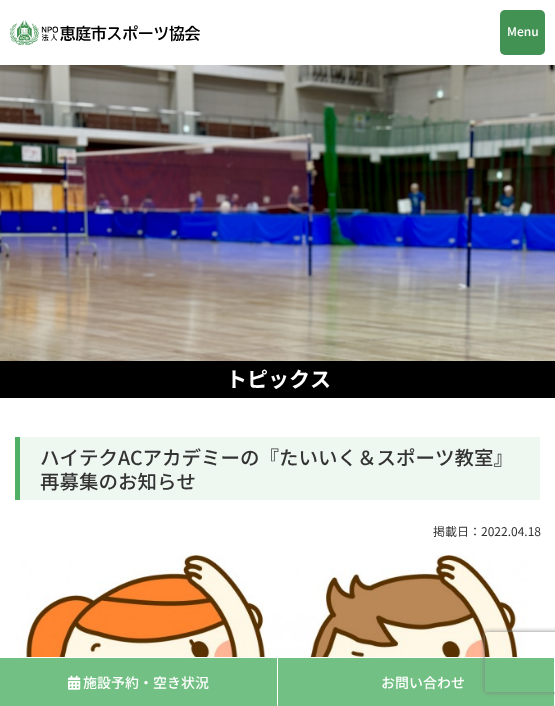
async function draw(canvas) {
  canvas.width = 555;
  canvas.height = 706;
  const ctx = canvas.getContext('2d');
  ctx.miterLimit = 4;
  ctx.fontKerning = 'normal';
  function label(s, x, y, font, color) {
    ctx.font = font;
    ctx.fillStyle = color;
    ctx.fillText(s, x, y);
  }
  function rect(x, y, w, h, color) {
    ctx.fillStyle = color;
    ctx.fillRect(x, y, w, h);
  }
  function roundedRect(x, y, w, h, r, color) {
    ctx.fillStyle = color;
    ctx.beginPath();
    ctx.roundRect(x, y, w, h, r);
    ctx.fill();
  }
  async function image(src, x, y, w, h) {
    const img = new Image();
    img.src = src;
    await img.decode();
    ctx.drawImage(img, x, y, w, h);
  }
  let path;

  rect(0, 0, 555, 706, '#fff');
  await image('assets/img1.png', 10, 20, 190, 25);
  roundedRect(500, 10, 45, 45, 5, '#429253');
  label('Menu', 507, 36, '500 12px Noto Sans JP', '#fff');
  await image('assets/img2.png', 0, 65, 555, 296);
  rect(0, 361, 555, 37, '#000');
  label('トピックス', 226, 387, 'bold 21px Noto Sans JP', '#fff');
  rect(20, 437, 520, 63, '#eef7f0');
  rect(15, 437, 5, 63, '#4fb064');
  label('ハイテクACアカデミーの『たいいく＆スポーツ教室』', 40, 465, '500 19.5px Noto Sans JP', '#333');
  label('再募集のお知らせ', 40, 489, '500 19.5px Noto Sans JP', '#333');
  label('掲載日：2022.04.18', 433, 536, '12px Noto Sans JP', '#333');
  await image('assets/img3.png', 15, 555, 512, 102);
  rect(0, 658, 277, 48, '#72c083');
  await image('assets/img4.png', 68, 675, 13, 15);
  label('施設予約・空き状況', 83, 688, '500 14px Noto Sans JP', '#fff');
  rect(278, 658, 276, 48, '#72c083');
  label('お問い合わせ', 381, 688, '500 14px Noto Sans JP', '#fff');
  ctx.save();
  path = new Path2D('M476 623H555V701H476ZM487 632H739C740 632 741 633 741 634V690C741 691 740 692 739 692H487C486 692 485 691 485 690V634C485 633 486 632 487 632Z');
  ctx.clip(path, 'evenodd');
  ctx.fillStyle = '#808080';
  ctx.filter = 'blur(2.5px)';
  ctx.beginPath();
  ctx.roundRect(485, 632, 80, 60, 2);
  ctx.fill();
  ctx.filter = 'none';
  ctx.restore();
}

draw(document.querySelector('canvas'));
